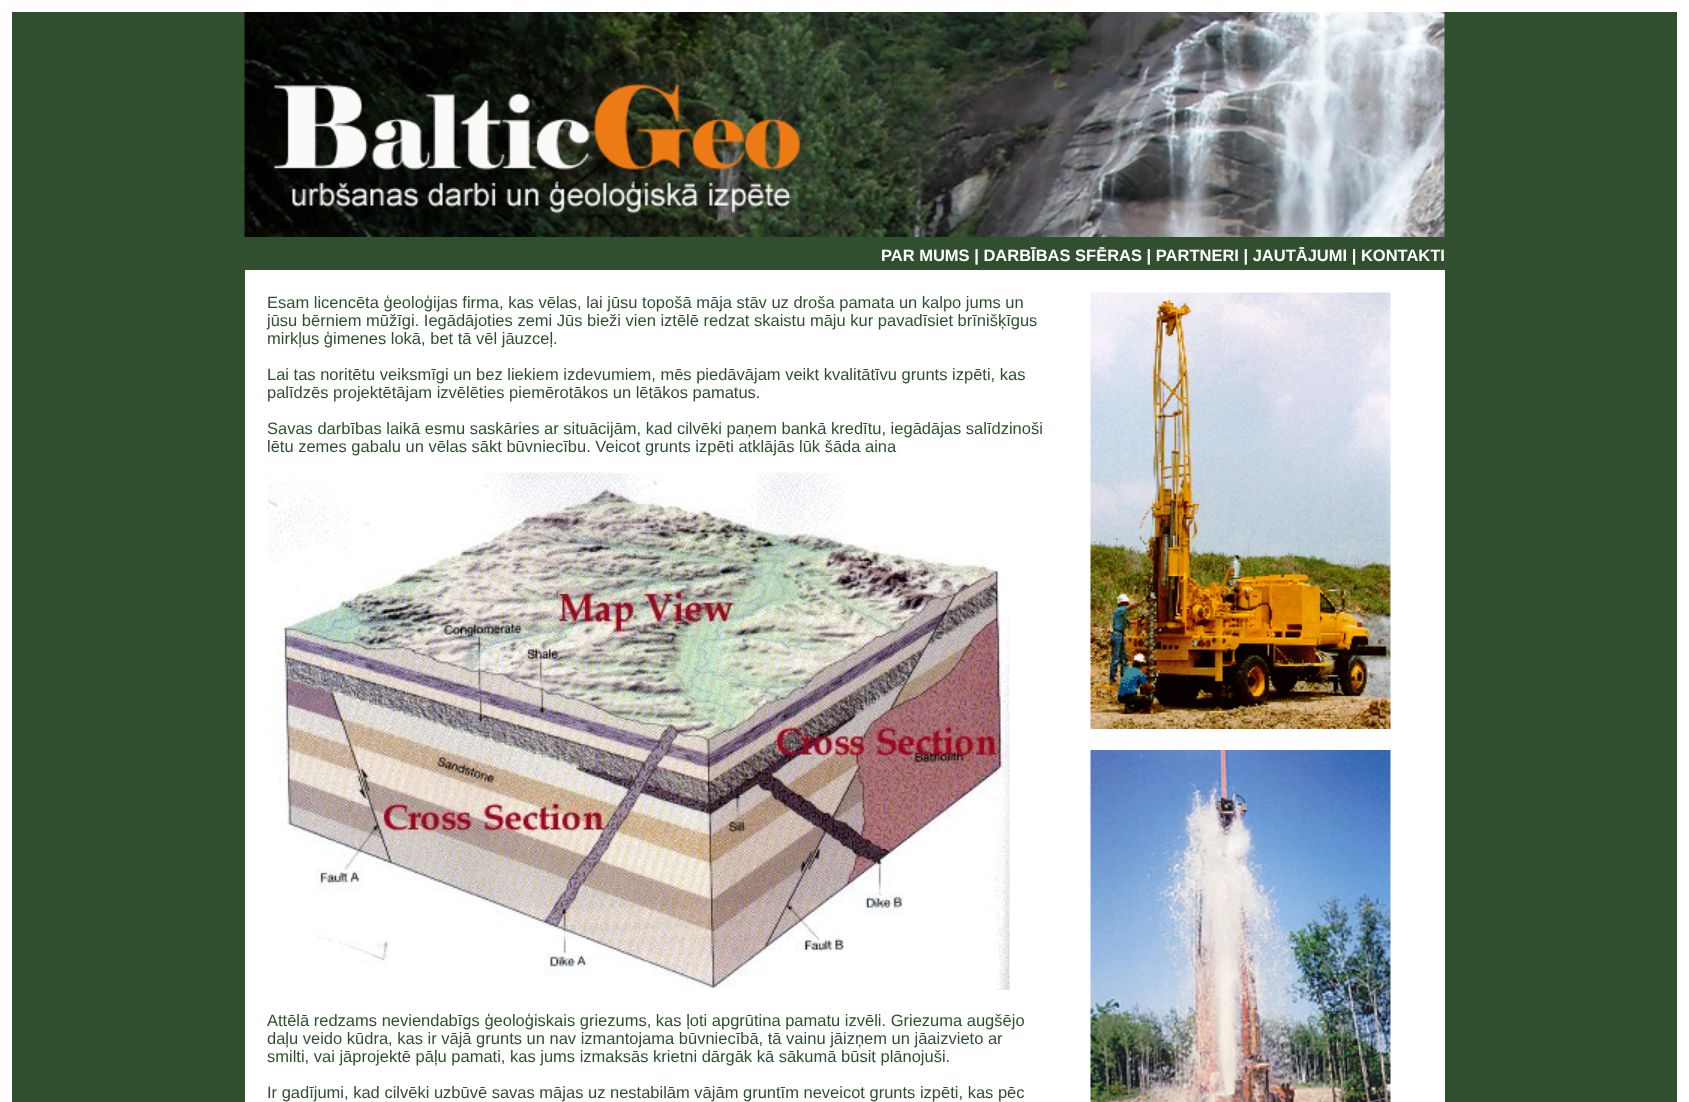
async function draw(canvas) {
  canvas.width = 1689;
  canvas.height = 1102;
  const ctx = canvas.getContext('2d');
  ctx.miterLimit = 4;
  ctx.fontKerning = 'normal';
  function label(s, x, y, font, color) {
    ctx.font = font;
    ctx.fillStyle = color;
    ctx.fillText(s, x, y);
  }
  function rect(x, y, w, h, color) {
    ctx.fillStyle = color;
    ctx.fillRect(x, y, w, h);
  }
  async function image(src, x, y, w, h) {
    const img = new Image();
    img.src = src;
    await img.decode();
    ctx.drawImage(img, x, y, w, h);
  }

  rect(0, 0, 1689, 1102, '#fff');
  rect(12, 12, 1665, 1090, '#2f4f2f');
  await image('assets/img1.png', 244, 12, 1201, 225);
  label('PAR MUMS | DARBĪBAS SFĒRAS | PARTNERI | JAUTĀJUMI | KONTAKTI', 881, 261, 'bold 16.5px Liberation Sans', '#fff');
  rect(245, 270, 1200, 832, '#fff');
  label('Esam licencēta ģeoloģijas firma, kas vēlas, lai jūsu topošā māja stāv uz droša pamata un kalpo jums un', 267, 308, '16.5px Liberation Sans', '#2f4f2f');
  label('jūsu bērniem mūžīgi. Iegādājoties zemi Jūs bieži vien iztēlē redzat skaistu māju kur pavadīsiet brīnišķīgus', 267, 326, '16.5px Liberation Sans', '#2f4f2f');
  label('mirkļus ģimenes lokā, bet tā vēl jāuzceļ.', 267, 344, '16.5px Liberation Sans', '#2f4f2f');
  label('Lai tas noritētu veiksmīgi un bez liekiem izdevumiem, mēs piedāvājam veikt kvalitātīvu grunts izpēti, kas', 267, 380, '16.5px Liberation Sans', '#2f4f2f');
  label('palīdzēs projektētājam izvēlēties piemērotākos un lētākos pamatus.', 267, 398, '16.5px Liberation Sans', '#2f4f2f');
  label('Savas darbības laikā esmu saskāries ar situācijām, kad cilvēki paņem bankā kredītu, iegādājas salīdzinoši', 267, 434, '16.5px Liberation Sans', '#2f4f2f');
  label('lētu zemes gabalu un vēlas sākt būvniecību. Veicot grunts izpēti atklājās lūk šāda aina', 267, 452, '16.5px Liberation Sans', '#2f4f2f');
  await image('assets/img2.png', 267, 472, 743, 518);
  label('Attēlā redzams neviendabīgs ģeoloģiskais griezums, kas ļoti apgrūtina pamatu izvēli. Griezuma augšējo', 267, 1026, '16.5px Liberation Sans', '#2f4f2f');
  label('daļu veido kūdra, kas ir vājā grunts un nav izmantojama būvniecībā, tā vainu jāizņem un jāaizvieto ar', 267, 1044, '16.5px Liberation Sans', '#2f4f2f');
  label('smilti, vai jāprojektē pāļu pamati, kas jums izmaksās krietni dārgāk kā sākumā būsit plānojuši.', 267, 1062, '16.5px Liberation Sans', '#2f4f2f');
  label('Ir gadījumi, kad cilvēki uzbūvē savas mājas uz nestabilām vājām gruntīm neveicot grunts izpēti, kas pēc', 267, 1098, '16.5px Liberation Sans', '#2f4f2f');
  await image('assets/img3.png', 1090, 292, 301, 437);
  await image('assets/img4.png', 1090, 750, 301, 352);
}

draw(document.querySelector('canvas'));
